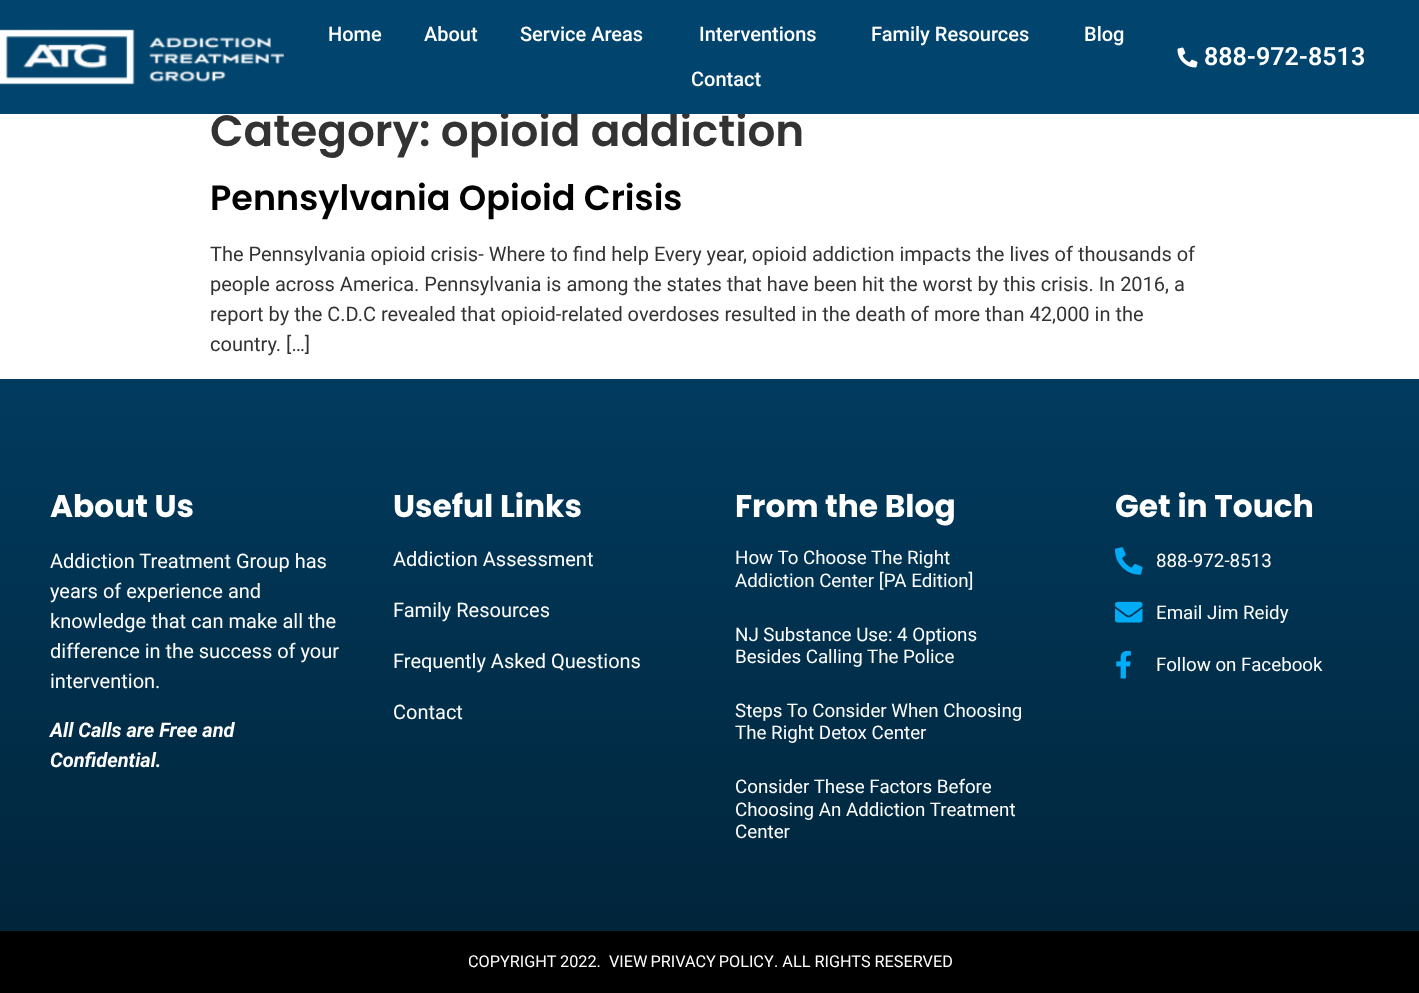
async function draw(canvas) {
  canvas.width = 1419;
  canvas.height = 993;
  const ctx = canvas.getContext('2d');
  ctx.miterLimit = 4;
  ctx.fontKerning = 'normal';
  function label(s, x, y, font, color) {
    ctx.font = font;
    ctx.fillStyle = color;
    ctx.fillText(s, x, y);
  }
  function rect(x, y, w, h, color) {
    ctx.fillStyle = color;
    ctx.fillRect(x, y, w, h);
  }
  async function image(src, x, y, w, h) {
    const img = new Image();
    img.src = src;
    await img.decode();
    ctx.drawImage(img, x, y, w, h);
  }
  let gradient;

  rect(0, 0, 1419, 993, '#fff');
  label('Category: opioid addiction', 210, 146, '600 43.75px Poppins', '#333');
  rect(0, 0, 1419, 114, '#01446e');
  await image('assets/img1.png', 0, 29, 284, 56);
  label('Home', 328, 41, '500 20px Roboto', '#fff');
  label('About', 424, 41, '500 20px Roboto', '#fff');
  label('Service Areas', 520, 41, '500 20px Roboto', '#fff');
  label('Interventions', 699, 41, '500 20px Roboto', '#fff');
  label('Family Resources', 871, 41, '500 20px Roboto', '#fff');
  label('Blog', 1084, 41, '500 20px Roboto', '#fff');
  label('Contact', 691, 86, '500 20px Roboto', '#fff');
  await image('assets/img2.png', 1177, 47, 21, 21);
  label('888-972-8513', 1204, 65, '600 25px Roboto', '#fff');
  label('Pennsylvania Opioid Crisis', 210, 210, '600 35px Poppins', '#020101');
  label('The Pennsylvania opioid crisis- Where to find help Every year, opioid addiction impacts the lives of thousands of', 210, 261, '20px Roboto', '#333');
  label('people across America. Pennsylvania is among the states that have been hit the worst by this crisis. In 2016, a', 210, 291, '20px Roboto', '#333');
  label('report by the C.D.C revealed that opioid-related overdoses resulted in the death of more than 42,000 in the', 210, 321, '20px Roboto', '#333');
  label('country. […]', 210, 351, '20px Roboto', '#333');
  gradient = ctx.createLinearGradient(710, 379, 710, 931);
  gradient.addColorStop(0, '#013b5f');
  gradient.addColorStop(1, '#01253b');
  ctx.fillStyle = gradient;
  ctx.fillRect(0, 379, 1419, 552);
  label('About Us', 50, 517, 'bold 31.25px Poppins', '#fff');
  label('Addiction Treatment Group has', 50, 568, '20px Roboto', '#fff');
  label('years of experience and', 50, 598, '20px Roboto', '#fff');
  label('knowledge that can make all the', 50, 628, '20px Roboto', '#fff');
  label('difference in the success of your', 50, 658, '20px Roboto', '#fff');
  label('intervention.', 50, 688, '20px Roboto', '#fff');
  label('All Calls are Free and', 50, 737, 'italic bold 20px Roboto', '#fff');
  label('Confidential.', 50, 767, 'italic bold 20px Roboto', '#fff');
  label('Useful Links', 393, 517, 'bold 31.25px Poppins', '#fff');
  label('Addiction Assessment', 393, 566, '20px Roboto', '#fff');
  label('Family Resources', 393, 617, '20px Roboto', '#fff');
  label('Frequently Asked Questions', 393, 668, '20px Roboto', '#fff');
  label('Contact', 393, 719, '20px Roboto', '#fff');
  label('From the Blog', 735, 517, 'bold 31.25px Poppins', '#fff');
  label('How To Choose The Right', 735, 564, '18.75px Roboto', '#fff');
  label('Addiction Center [PA Edition]', 735, 587, '18.75px Roboto', '#fff');
  label('NJ Substance Use: 4 Options', 735, 641, '18.75px Roboto', '#fff');
  label('Besides Calling The Police', 735, 663, '18.75px Roboto', '#fff');
  label('Steps To Consider When Choosing', 735, 717, '18.75px Roboto', '#fff');
  label('The Right Detox Center', 735, 739, '18.75px Roboto', '#fff');
  label('Consider These Factors Before', 735, 793, '18.75px Roboto', '#fff');
  label('Choosing An Addiction Treatment', 735, 816, '18.75px Roboto', '#fff');
  label('Center', 735, 838, '18.75px Roboto', '#fff');
  label('Get in Touch', 1115, 517, 'bold 31.25px Poppins', '#fff');
  await image('assets/img3.png', 1115, 547, 28, 28);
  label('888-972-8513', 1156, 567, '18.75px Roboto', '#fff');
  await image('assets/img4.png', 1115, 601, 28, 22);
  label('Email Jim Reidy', 1156, 619, '18.75px Roboto', '#fff');
  await image('assets/img5.png', 1116, 650, 15, 29);
  label('Follow on Facebook', 1156, 671, '18.75px Roboto', '#fff');
  rect(0, 931, 1419, 62, '#000');
  label('COPYRIGHT 2022.', 468, 967, '16.25px Roboto', '#fff');
  ctx.wordSpacing = '-1px';
  label('VIEW PRIVACY POLICY', 609, 967, '16.25px Roboto', '#fff');
  ctx.wordSpacing = '0px';
  label('. ALL RIGHTS RESERVED', 774, 967, '16.25px Roboto', '#fff');
}

draw(document.querySelector('canvas'));
